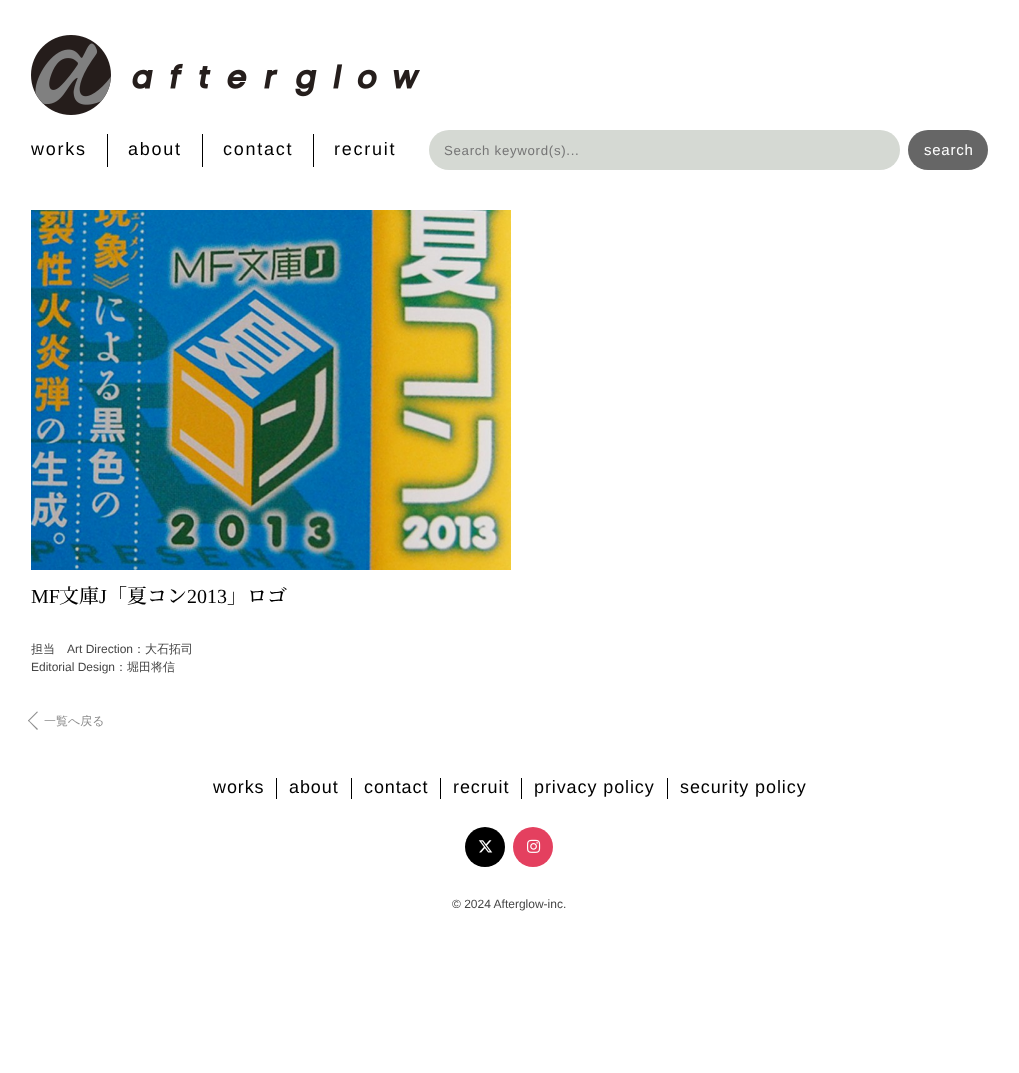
async function draw(canvas) {
  canvas.width = 1019;
  canvas.height = 1073;
  const ctx = canvas.getContext('2d');
  ctx.miterLimit = 4;
  ctx.fontKerning = 'normal';
  function label(s, x, y, font, color) {
    ctx.font = font;
    ctx.fillStyle = color;
    ctx.fillText(s, x, y);
  }
  function rect(x, y, w, h, color) {
    ctx.fillStyle = color;
    ctx.fillRect(x, y, w, h);
  }
  function roundedRect(x, y, w, h, r, color) {
    ctx.fillStyle = color;
    ctx.beginPath();
    ctx.roundRect(x, y, w, h, r);
    ctx.fill();
  }
  async function image(src, x, y, w, h) {
    const img = new Image();
    img.src = src;
    await img.decode();
    ctx.drawImage(img, x, y, w, h);
  }
  let path;

  rect(0, 0, 1019, 1073, '#fff');
  await image('assets/img1.png', 31, 35, 389, 80);
  ctx.letterSpacing = '1.75px';
  label('works', 31, 155, '18px "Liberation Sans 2"', '#000');
  rect(107, 134, 1, 33, '#000');
  label('about', 128, 155, '18px "Liberation Sans 2"', '#000');
  rect(202, 134, 1, 33, '#000');
  label('contact', 223, 155, '18px "Liberation Sans 2"', '#000');
  rect(313, 134, 1, 33, '#000');
  label('recruit', 334, 155, '18px "Liberation Sans 2"', '#000');
  roundedRect(429, 130, 471, 40, 20, '#d5d9d3');
  ctx.letterSpacing = '0.7px';
  label('Search keyword(s)...', 444, 155, '13.25px "Liberation Sans 2"', '#757575');
  roundedRect(908, 130, 80, 40, 20, '#666');
  ctx.letterSpacing = '0.75px';
  label('search', 924, 155, '15px "Liberation Sans 2"', '#fff');
  await image('assets/img2.png', 31, 210, 480, 360);
  ctx.letterSpacing = '0px';
  label('MF', 31, 603, '20px Liberation Serif', '#000');
  label('文庫', 59, 603, '500 20px Noto Serif JP', '#000');
  label('J', 99, 603, '20px Liberation Serif', '#000');
  label('「夏コン', 107, 603, '500 20px Noto Serif JP', '#000');
  label('2013', 187, 603, '20px Liberation Serif', '#000');
  label('」ロゴ', 227, 603, '500 20px Noto Serif JP', '#000');
  label('担当', 31, 653, '500 12px WenQuanYi Zen Hei', '#454545');
  label('Art Direction', 67, 653, '12px Liberation Sans', '#454545');
  label('：大石拓司', 133, 653, '500 12px WenQuanYi Zen Hei', '#454545');
  label('Editorial Design', 31, 671, '12px Liberation Sans', '#454545');
  label('：堀田将信', 115, 671, '500 12px WenQuanYi Zen Hei', '#454545');
  ctx.fillStyle = '#8e8e8e';
  path = new Path2D('M28.5 720L38 729L37 730L28 720.5Z');
  ctx.fill(path);
  path = new Path2D('M37 711.5L38 712L28.5 721.5L28 720.5Z');
  ctx.fill(path);
  label('一覧へ戻る', 44, 725, '500 12px WenQuanYi Zen Hei', '#8e8e8e');
  ctx.letterSpacing = '0.9px';
  label('works', 213, 793, '18px "Liberation Sans 2"', '#000');
  rect(276, 778, 1, 21, '#000');
  label('about', 289, 793, '18px "Liberation Sans 2"', '#000');
  rect(351, 778, 1, 21, '#000');
  label('contact', 364, 793, '18px "Liberation Sans 2"', '#000');
  rect(440, 778, 1, 21, '#000');
  label('recruit', 453, 793, '18px "Liberation Sans 2"', '#000');
  rect(521, 778, 1, 21, '#000');
  label('privacy policy', 534, 793, '18px "Liberation Sans 2"', '#000');
  rect(667, 778, 1, 21, '#000');
  label('security policy', 680, 793, '18px "Liberation Sans 2"', '#000');
  ctx.beginPath();
  ctx.arc(485, 847, 20, 0, 2 * Math.PI);
  ctx.fill();
  await image('assets/img3.png', 478, 840, 15, 13);
  ctx.fillStyle = '#e4405f';
  ctx.beginPath();
  ctx.arc(533, 847, 20, 0, 2 * Math.PI);
  ctx.fill();
  await image('assets/img4.png', 527, 839, 14, 14);
  ctx.letterSpacing = '0px';
  label('© 2024 Afterglow-inc.', 452, 908, '12px Liberation Sans', '#454545');
}

draw(document.querySelector('canvas'));
